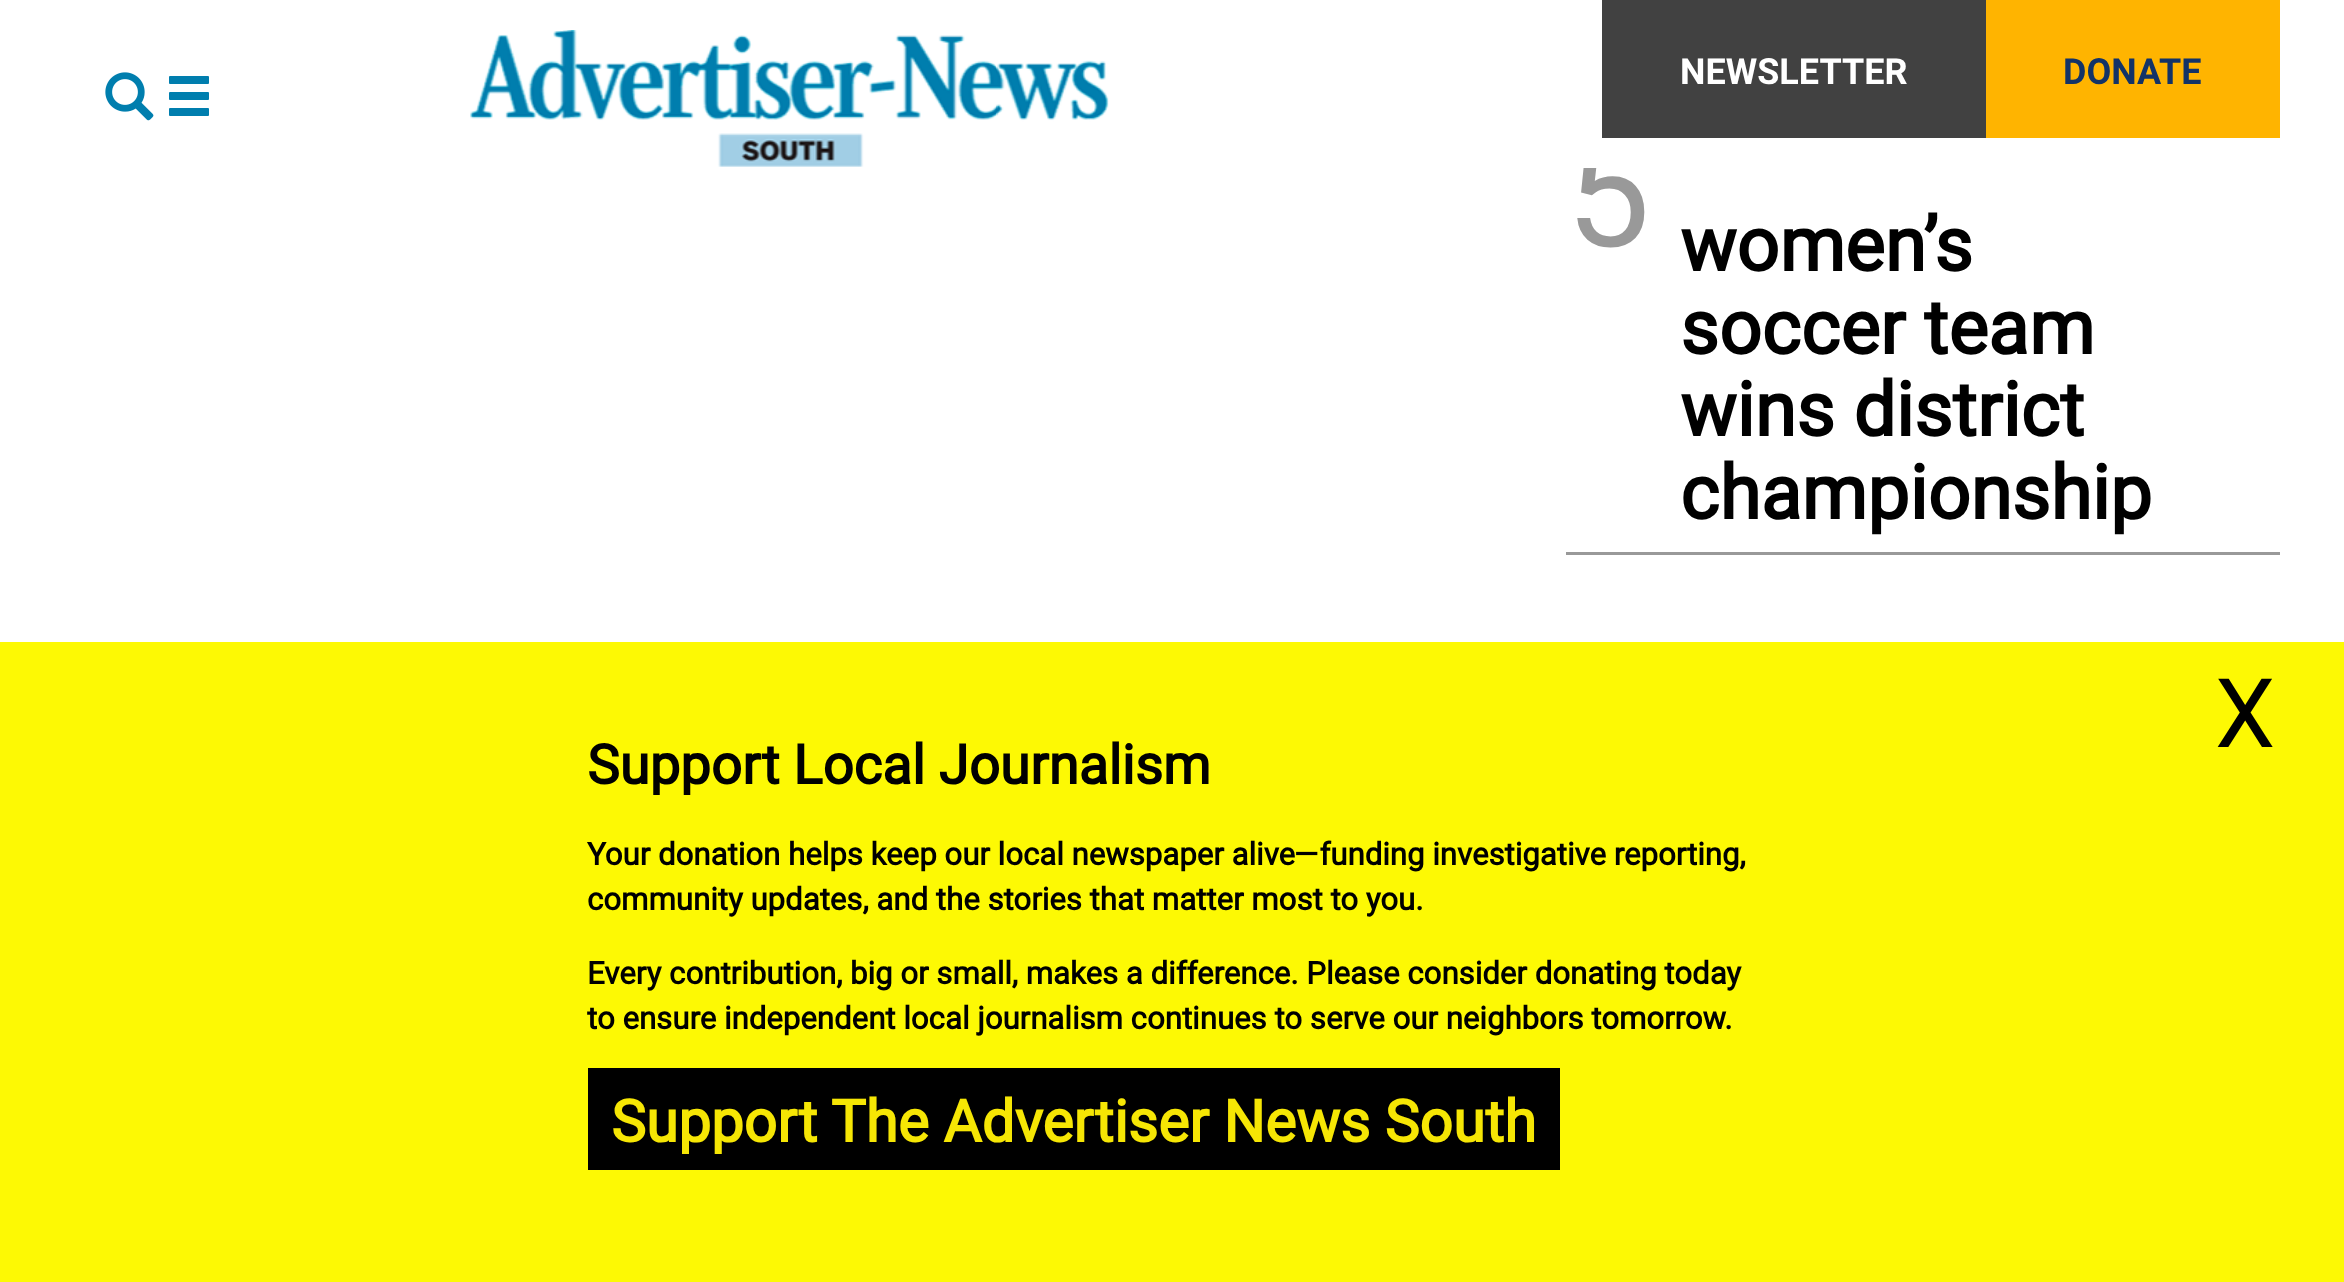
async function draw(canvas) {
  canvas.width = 2344;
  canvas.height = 1282;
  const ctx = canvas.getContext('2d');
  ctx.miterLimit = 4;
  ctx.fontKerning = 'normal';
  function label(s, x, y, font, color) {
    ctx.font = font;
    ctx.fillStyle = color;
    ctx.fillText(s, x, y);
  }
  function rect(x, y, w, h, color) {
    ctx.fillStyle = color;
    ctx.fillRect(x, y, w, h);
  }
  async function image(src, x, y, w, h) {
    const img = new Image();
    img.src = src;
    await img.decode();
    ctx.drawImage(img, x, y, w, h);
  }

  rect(0, 0, 2344, 1282, '#fff');
  label('5', 1566, 246, '150px Roboto', '#999');
  rect(1583, 139, 59, 29, '#fff');
  await image('assets/img1.png', 105, 72, 104, 49);
  await image('assets/img2.png', 470, 30, 639, 137);
  rect(1602, 0, 384, 138, '#414141');
  label('NEWSLETTER', 1680, 84, 'bold 36px "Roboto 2"', '#fff');
  rect(1986, 0, 294, 138, '#ffb400');
  label('DONATE', 2063, 84, 'bold 36px "Roboto 2"', '#133367');
  rect(1566, 552, 714, 3, '#999');
  label('women’s', 1680, 271, 'bold 75px Roboto', '#000');
  label('soccer team', 1680, 354, 'bold 75px Roboto', '#000');
  label('wins district', 1680, 436, 'bold 75px Roboto', '#000');
  label('championship', 1680, 519, 'bold 75px Roboto', '#000');
  rect(0, 642, 2344, 640, '#fdf904');
  label('X', 2215, 747, '96px Roboto', '#000');
  label('Support Local Journalism', 587, 784, 'bold 54.6px Roboto', '#000');
  label('Your donation helps keep our local newspaper alive—funding investigative reporting,', 587, 865, 'bold 31.2px Roboto', '#000');
  label('community updates, and the stories that matter most to you.', 587, 910, 'bold 31.2px Roboto', '#000');
  label('Every contribution, big or small, makes a difference. Please consider donating today', 587, 984, 'bold 31.2px Roboto', '#000');
  label('to ensure independent local journalism continues to serve our neighbors tomorrow.', 587, 1029, 'bold 31.2px Roboto', '#000');
  rect(588, 1068, 972, 102, '#000');
  label('Support The Advertiser News South', 611, 1142, 'bold 58.5px Roboto', '#f6e604');
}

draw(document.querySelector('canvas'));
